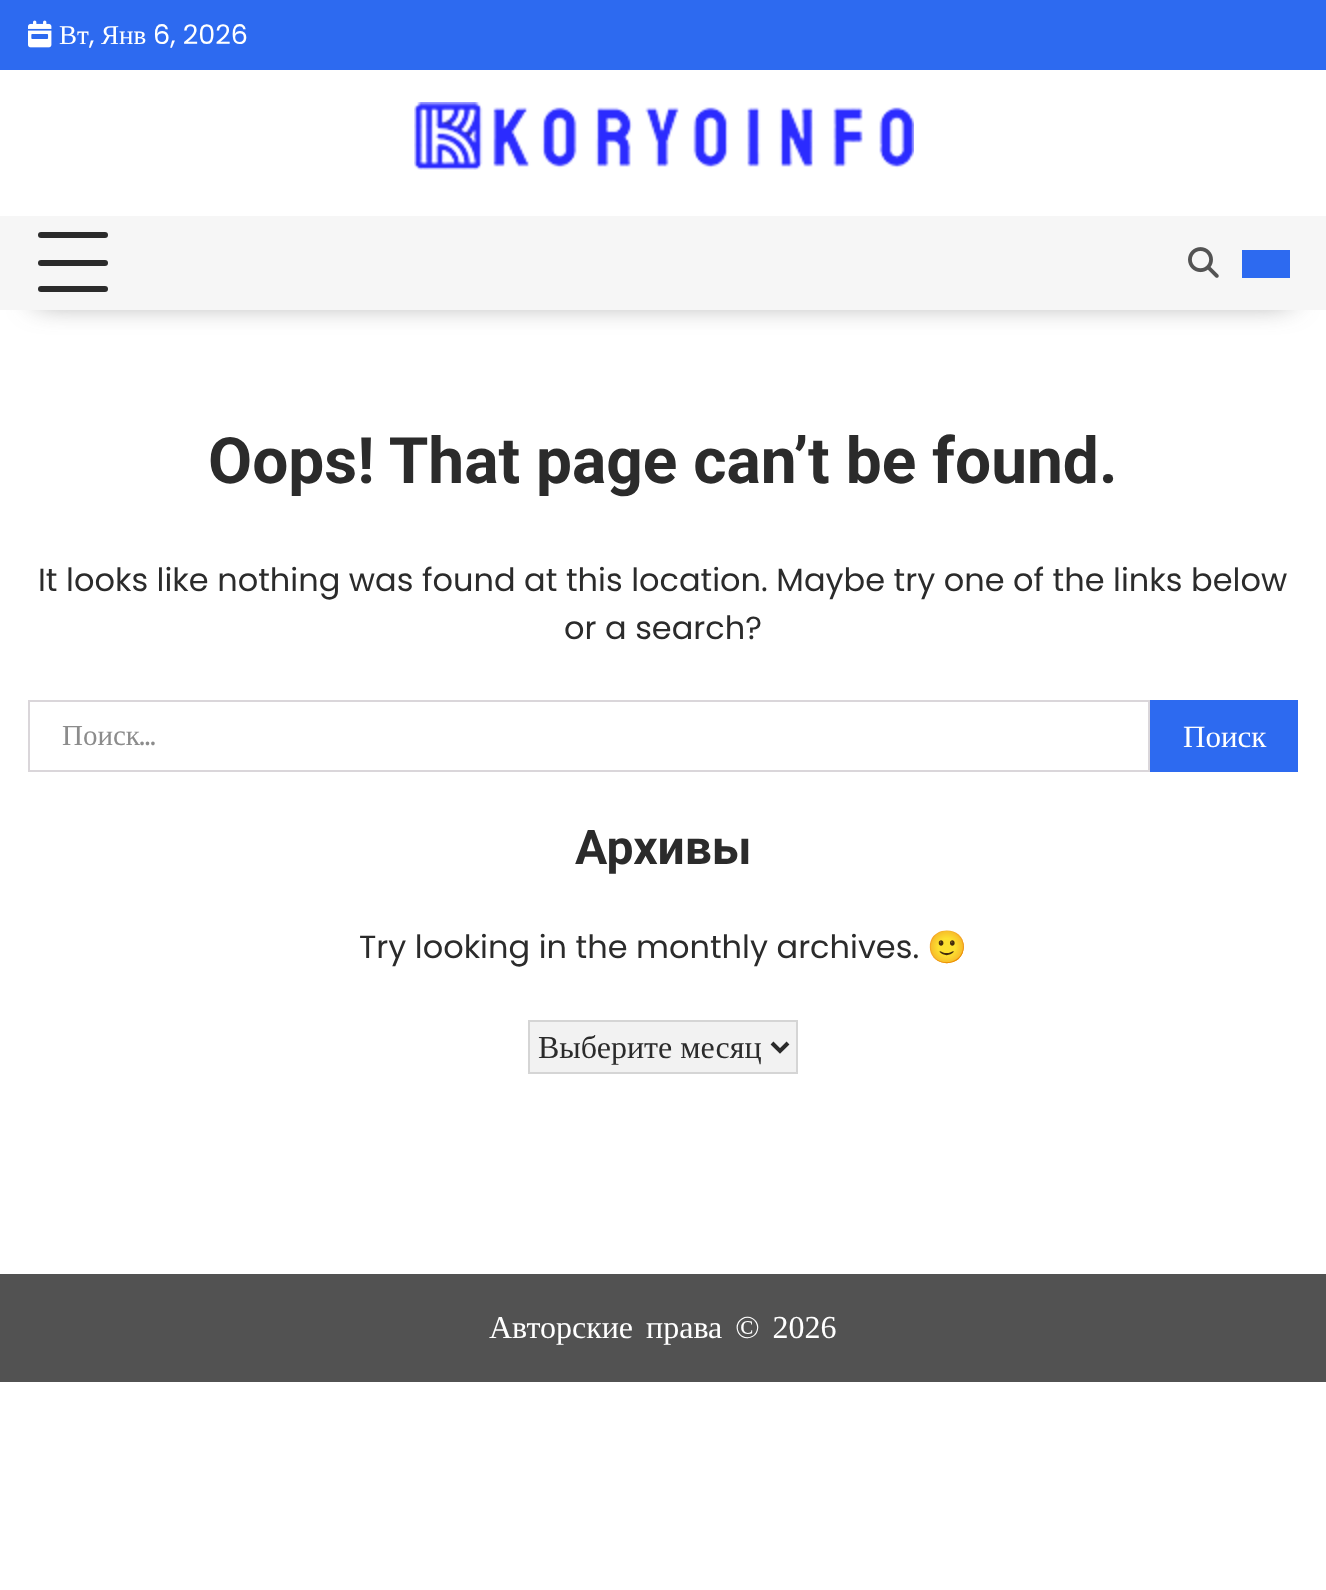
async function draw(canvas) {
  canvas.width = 1326;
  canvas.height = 1590;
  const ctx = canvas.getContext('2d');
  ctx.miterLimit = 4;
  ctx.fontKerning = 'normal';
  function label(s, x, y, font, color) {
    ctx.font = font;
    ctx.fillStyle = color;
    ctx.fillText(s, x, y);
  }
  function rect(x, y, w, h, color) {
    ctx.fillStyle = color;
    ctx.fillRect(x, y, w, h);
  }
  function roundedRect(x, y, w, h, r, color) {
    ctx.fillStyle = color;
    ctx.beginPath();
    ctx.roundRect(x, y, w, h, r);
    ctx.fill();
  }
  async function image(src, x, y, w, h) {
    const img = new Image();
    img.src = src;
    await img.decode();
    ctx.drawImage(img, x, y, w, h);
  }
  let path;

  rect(0, 0, 1326, 1590, '#fff');
  rect(0, 0, 1326, 70, '#2d6af0');
  await image('assets/img1.png', 28, 20, 24, 28);
  label('Вт', 59, 44, '27px Liberation Serif', '#fff');
  label(',', 89, 44, '27px Poppins', '#fff');
  label('Янв', 101, 44, '27px Liberation Serif', '#fff');
  label('6, 2026', 153, 44, '27px Poppins', '#fff');
  await image('assets/img2.png', 414, 102, 500, 68);
  ctx.fillStyle = '#4b4b4bba';
  ctx.filter = 'blur(15px)';
  ctx.beginPath();
  ctx.rect(36, 278, 1254, 22);
  ctx.fill();
  ctx.filter = 'none';
  rect(0, 216, 1326, 94, '#f6f6f6');
  roundedRect(38, 232, 70, 6, 3, '#2b2b2b');
  roundedRect(38, 260, 70, 6, 3, '#2b2b2b');
  roundedRect(38, 286, 70, 6, 3, '#2b2b2b');
  await image('assets/img3.png', 1188, 247, 31, 31);
  rect(1242, 250, 48, 28, '#2d6af0');
  label('Oops! That page can’t be found.', 208, 483, 'bold 64px Roboto', '#2b2b2b');
  label('It looks like nothing was found at this location. Maybe try one of the links below', 38, 591, '32px Poppins', '#2b2b2b');
  label('or a search?', 564, 639, '32px Poppins', '#2b2b2b');
  ctx.strokeStyle = '#dad6da';
  ctx.lineWidth = 2;
  ctx.strokeRect(29, 701, 1120, 70);
  label('Поиск', 62, 745, '29px Liberation Serif', '#8c8c8c');
  label('…', 139, 745, '29px Poppins', '#8c8c8c');
  rect(1150, 700, 148, 72, '#2d6af0');
  label('Поиск', 1183, 747, '31px Liberation Serif', '#fff');
  label('Архивы', 575, 864, 'bold 48px Roboto', '#2b2b2b');
  label('Try looking in the monthly archives.', 359, 958, '32px Poppins', '#2b2b2b');
  label('🙂', 927, 958, '32px Noto Color Emoji', '#2b2b2b');
  ctx.fillStyle = '#f2f2f2';
  ctx.beginPath();
  ctx.rect(529, 1021, 268, 52);
  ctx.fill();
  ctx.strokeStyle = '#d5d5d5';
  ctx.stroke();
  path = new Path2D('M772 1043L780 1051L788 1043');
  ctx.strokeStyle = '#2b2b2b';
  ctx.lineWidth = 4;
  ctx.stroke(path);
  label('Выберите месяц', 538, 1058, '32px Liberation Serif', '#2b2b2b');
  rect(0, 1274, 1326, 108, '#525252');
  ctx.wordSpacing = '5px';
  label('Авторские права © 2026', 489, 1338, '32px Liberation Serif', '#fff');
}

draw(document.querySelector('canvas'));
